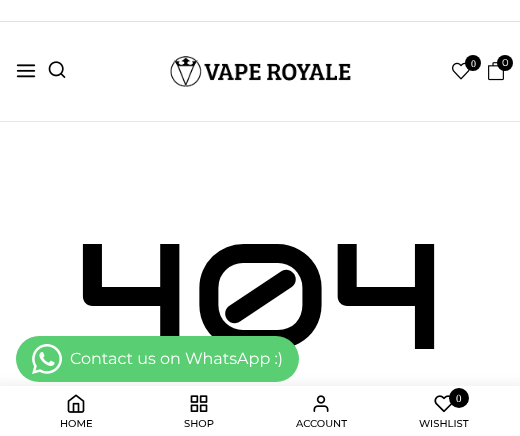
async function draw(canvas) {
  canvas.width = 520;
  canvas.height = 436;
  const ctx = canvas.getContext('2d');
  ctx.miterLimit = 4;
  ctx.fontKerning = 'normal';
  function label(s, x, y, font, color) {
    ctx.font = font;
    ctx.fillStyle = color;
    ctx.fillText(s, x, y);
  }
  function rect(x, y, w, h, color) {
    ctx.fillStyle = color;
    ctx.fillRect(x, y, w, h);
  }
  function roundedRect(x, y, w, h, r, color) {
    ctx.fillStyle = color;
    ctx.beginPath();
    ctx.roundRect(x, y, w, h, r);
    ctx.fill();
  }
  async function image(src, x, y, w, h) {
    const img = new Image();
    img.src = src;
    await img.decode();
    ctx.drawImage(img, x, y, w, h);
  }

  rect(0, 0, 520, 436, '#fff');
  rect(0, 21, 520, 1, '#e2e2e2');
  rect(0, 121, 520, 1, '#e6e6e6');
  await image('assets/img1.png', 16, 64, 20, 14);
  await image('assets/img2.png', 48, 61, 18, 17);
  await image('assets/img3.png', 170, 56, 181, 31);
  await image('assets/img4.png', 452, 62, 18, 18);
  ctx.fillStyle = '#000';
  ctx.beginPath();
  ctx.arc(473, 63, 8, 0, 2 * Math.PI);
  ctx.fill();
  label('0', 471, 67, '10px Liberation Serif', '#fff');
  await image('assets/img5.png', 488, 62, 16, 19);
  ctx.fillStyle = '#000';
  ctx.beginPath();
  ctx.arc(505, 63, 8, 0, 2 * Math.PI);
  ctx.fill();
  label('0', 502, 66, '10px Montserrat', '#fff');
  ctx.fillStyle = '#0000000d';
  ctx.filter = 'blur(5px)';
  ctx.beginPath();
  ctx.rect(-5, 382, 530, 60);
  ctx.fill();
  ctx.filter = 'none';
  rect(0, 386, 520, 50, '#fff');
  await image('assets/img6.png', 67, 394, 18, 19);
  label('HOME', 60, 427, '500 10px Montserrat', '#000');
  await image('assets/img7.png', 190, 395, 18, 17);
  label('SHOP', 184, 427, '500 10px Montserrat', '#000');
  await image('assets/img8.png', 313, 395, 16, 17);
  label('ACCOUNT', 296, 427, '500 10px Montserrat', '#000');
  await image('assets/img9.png', 434, 395, 18, 18);
  ctx.beginPath();
  ctx.arc(459, 398, 10, 0, 2 * Math.PI);
  ctx.fill();
  label('0', 456, 402, '11px Liberation Serif', '#fff');
  label('WISHLIST', 419, 427, '500 10px Montserrat', '#000');
  label('404', 75, 349, '150px Audiowide', '#000');
  roundedRect(16, 336, 283, 46, 23, '#59ce72');
  await image('assets/img10.png', 32, 344, 30, 30);
  label('Contact us on WhatsApp :)', 70, 364, '16px Montserrat', '#fff');
}

draw(document.querySelector('canvas'));
